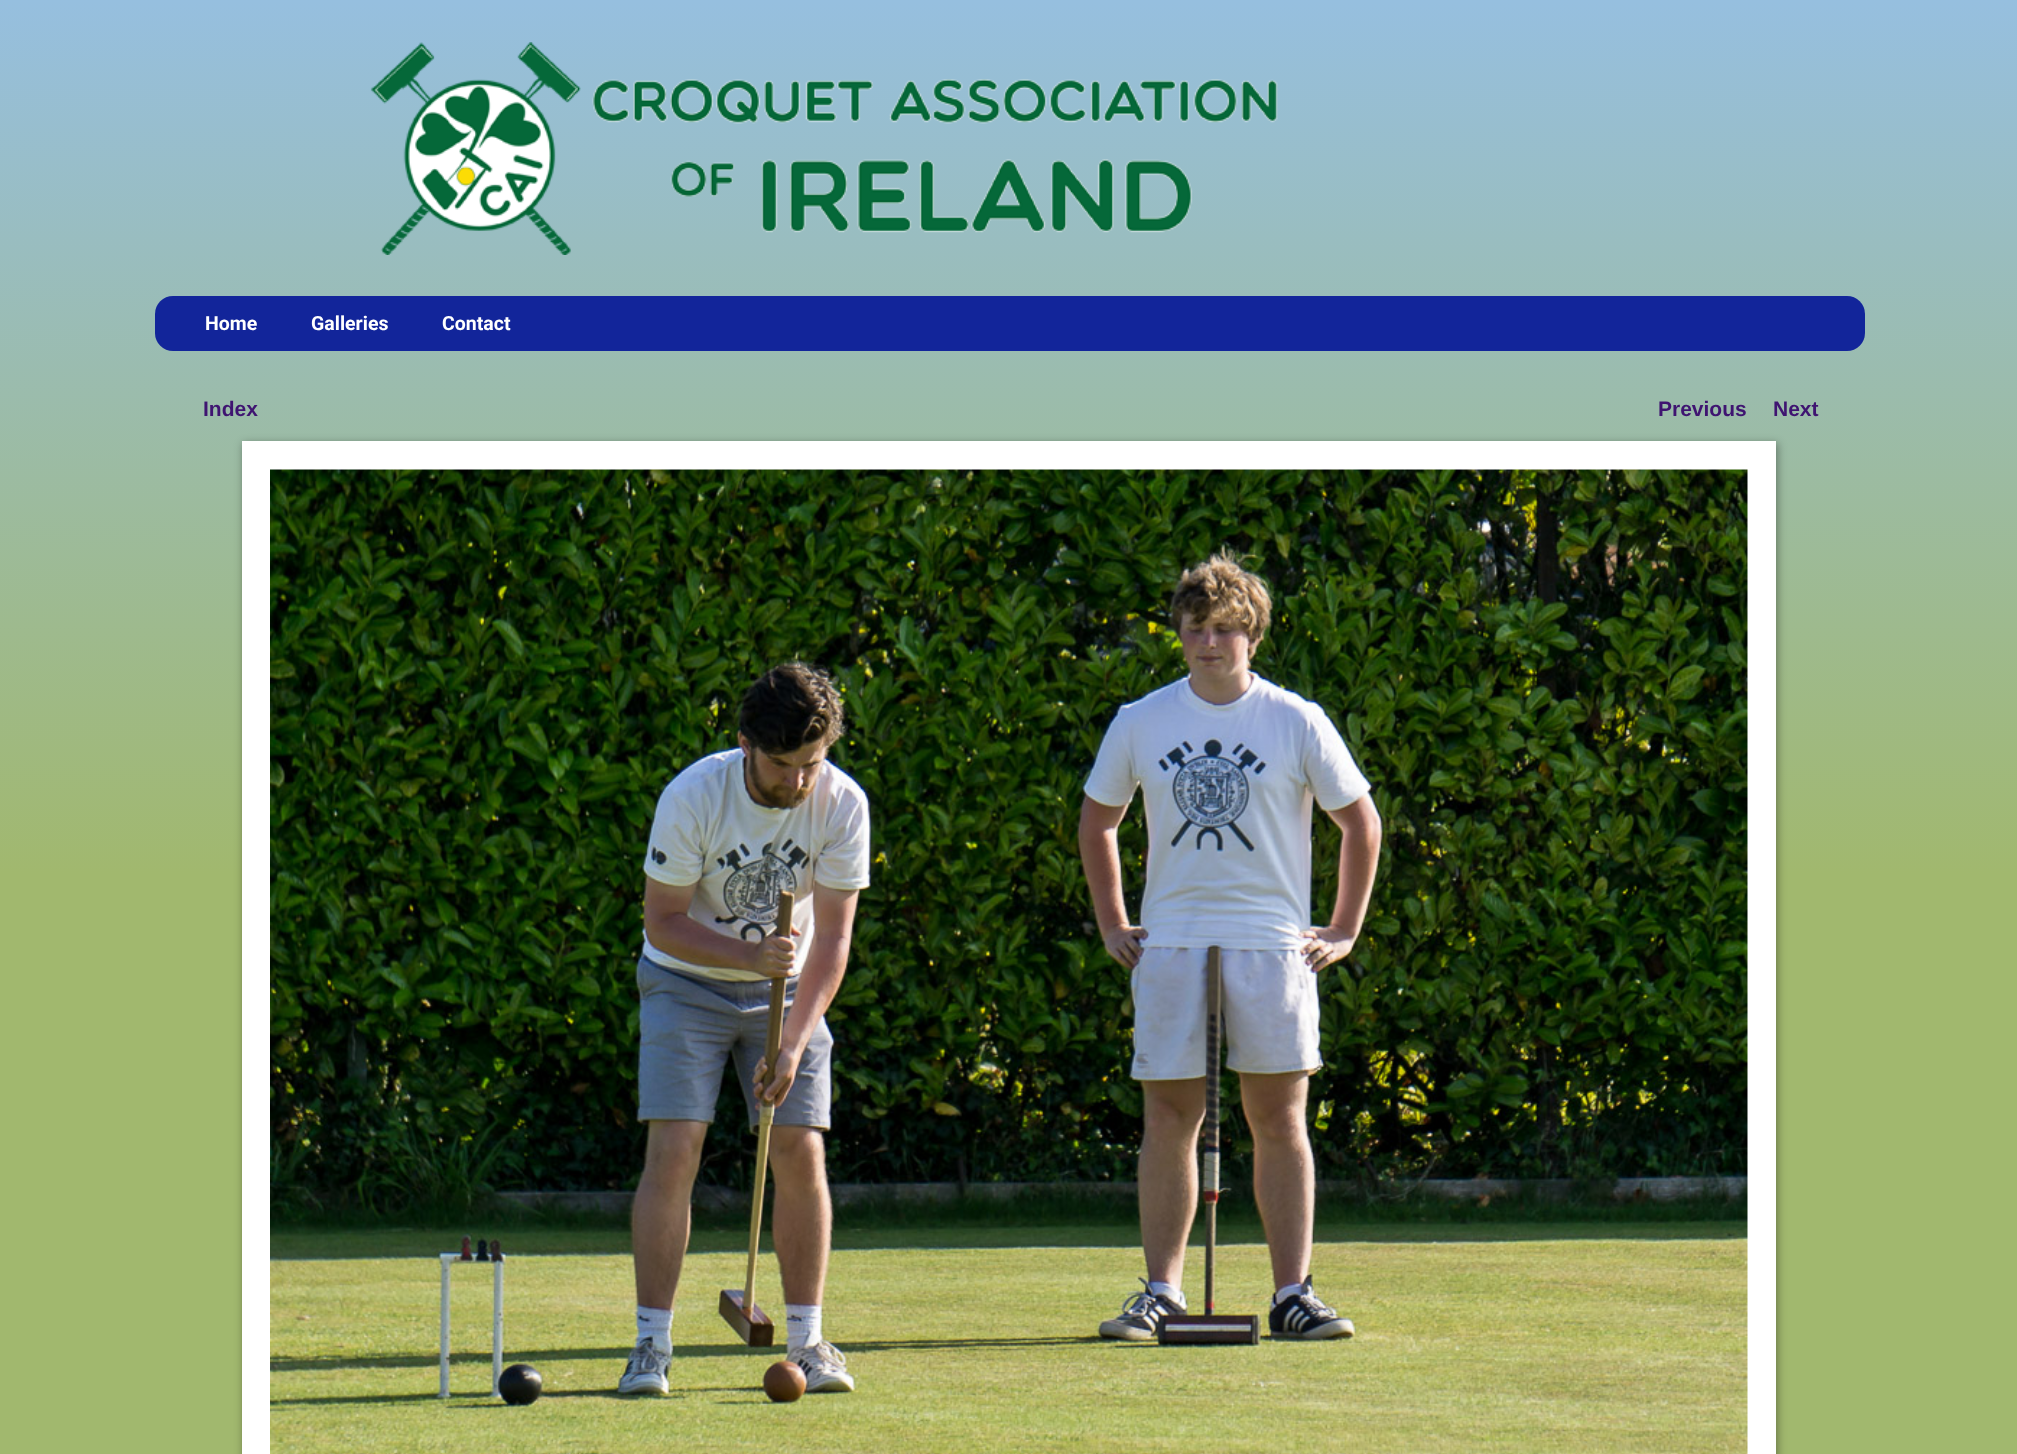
async function draw(canvas) {
  canvas.width = 2017;
  canvas.height = 1454;
  const ctx = canvas.getContext('2d');
  ctx.miterLimit = 4;
  ctx.fontKerning = 'normal';
  function label(s, x, y, font, color) {
    ctx.font = font;
    ctx.fillStyle = color;
    ctx.fillText(s, x, y);
  }
  function rect(x, y, w, h, color) {
    ctx.fillStyle = color;
    ctx.fillRect(x, y, w, h);
  }
  function roundedRect(x, y, w, h, r, color) {
    ctx.fillStyle = color;
    ctx.beginPath();
    ctx.roundRect(x, y, w, h, r);
    ctx.fill();
  }
  async function image(src, x, y, w, h) {
    const img = new Image();
    img.src = src;
    await img.decode();
    ctx.drawImage(img, x, y, w, h);
  }
  let gradient;

  rect(0, 0, 2017, 1454, '#fff');
  gradient = ctx.createLinearGradient(1009, 0, 1009, 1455);
  gradient.addColorStop(0, '#96bfdf');
  gradient.addColorStop(0.6, '#a1b86e');
  ctx.fillStyle = gradient;
  ctx.fillRect(0, 0, 2017, 1454);
  await image('assets/img1.png', 370, 42, 908, 213);
  roundedRect(155, 296, 1710, 55, 18, '#12259a');
  label('Home', 205, 330, 'bold 19.5px Roboto', '#fff');
  label('Galleries', 311, 330, 'bold 19.5px Roboto', '#fff');
  label('Contact', 442, 330, 'bold 19.5px Roboto', '#fff');
  label('Index', 203, 416, 'bold 21px Liberation Sans', '#3f1471');
  label('Previous', 1658, 416, 'bold 21px Liberation Sans', '#3f1471');
  label('Next', 1773, 416, 'bold 21px Liberation Sans', '#3f1471');
  ctx.fillStyle = '#00000059';
  ctx.filter = 'blur(4px)';
  ctx.beginPath();
  ctx.rect(243, 443, 1535, 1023);
  ctx.fill();
  ctx.filter = 'none';
  ctx.strokeStyle = '#fff';
  ctx.lineWidth = 29;
  ctx.strokeRect(256.5, 455.5, 1505, 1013);
  await image('assets/img2.png', 270, 469, 1478, 985);
}

draw(document.querySelector('canvas'));
